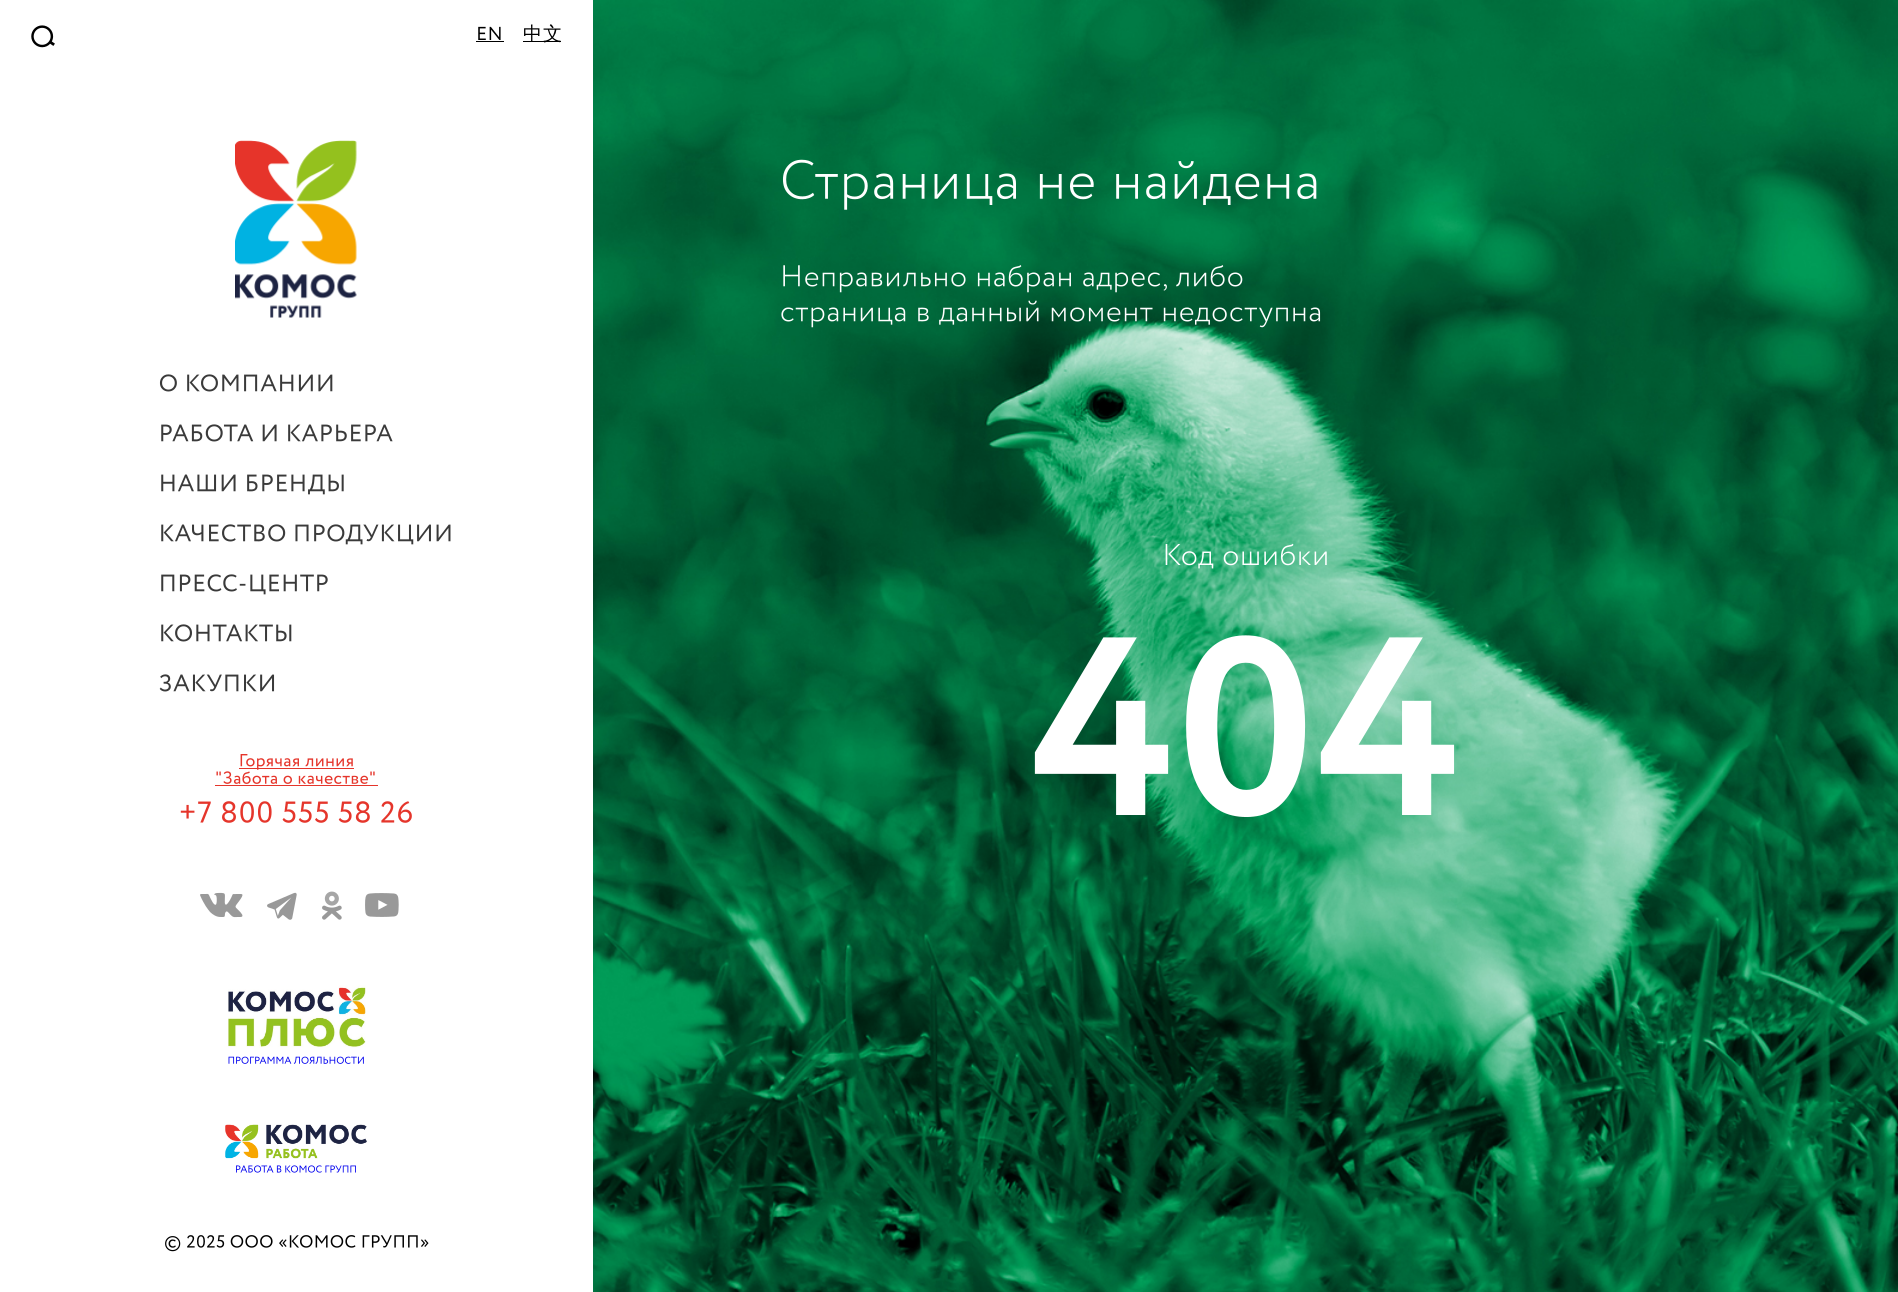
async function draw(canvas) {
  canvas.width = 1898;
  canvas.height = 1292;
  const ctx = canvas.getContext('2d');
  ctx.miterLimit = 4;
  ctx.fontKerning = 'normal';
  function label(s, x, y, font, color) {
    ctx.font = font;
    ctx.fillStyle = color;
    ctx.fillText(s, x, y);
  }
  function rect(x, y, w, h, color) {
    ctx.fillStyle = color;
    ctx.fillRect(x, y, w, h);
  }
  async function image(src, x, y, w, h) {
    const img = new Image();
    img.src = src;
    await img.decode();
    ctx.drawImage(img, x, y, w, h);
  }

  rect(0, 0, 1898, 1292, '#fff');
  await image('assets/img1.png', 31, 25, 24, 23);
  await image('assets/img2.png', 478, 26, 23, 14);
  rect(476, 41, 28, 1, '#000');
  rect(523, 41, 38, 1, '#000');
  ctx.letterSpacing = '1px';
  label('中文', 523, 40, '500 19px WenQuanYi Zen Hei', '#000');
  await image('assets/img3.png', 235, 140, 122, 178);
  await image('assets/img4.png', 159, 374, 174, 18);
  await image('assets/img5.png', 161, 424, 232, 18);
  await image('assets/img6.png', 161, 474, 183, 21);
  await image('assets/img7.png', 161, 524, 290, 21);
  await image('assets/img8.png', 161, 574, 167, 21);
  await image('assets/img9.png', 161, 624, 131, 18);
  await image('assets/img10.png', 159, 674, 116, 18);
  rect(239, 768, 115, 1, '#e5352b');
  await image('assets/img11.png', 240, 754, 113, 16);
  await image('assets/img12.png', 216, 771, 159, 13);
  rect(215, 785, 163, 1, '#e5352b');
  await image('assets/img13.png', 180, 801, 232, 22);
  await image('assets/img14.png', 200, 892, 43, 26);
  await image('assets/img15.png', 267, 892, 30, 28);
  await image('assets/img16.png', 322, 891, 20, 29);
  await image('assets/img17.png', 365, 893, 34, 24);
  await image('assets/img18.png', 228, 985, 138, 63);
  await image('assets/img19.png', 228, 1056, 136, 8);
  await image('assets/img20.png', 225, 1124, 142, 35);
  await image('assets/img21.png', 236, 1165, 120, 8);
  await image('assets/img22.png', 165, 1235, 264, 17);
  await image('assets/img23.png', 593, 0, 1305, 1292);
  await image('assets/img24.png', 782, 159, 535, 51);
  await image('assets/img25.png', 783, 265, 460, 28);
  await image('assets/img26.png', 781, 300, 540, 28);
  await image('assets/img27.png', 1165, 543, 162, 26);
  await image('assets/img28.png', 1034, 635, 421, 182);
}

draw(document.querySelector('canvas'));
